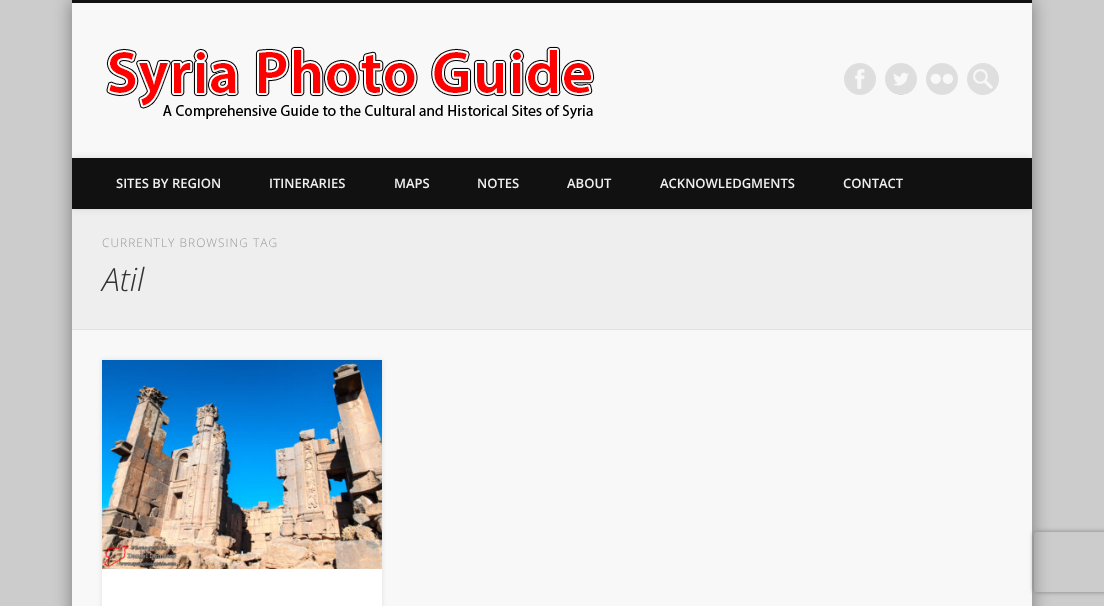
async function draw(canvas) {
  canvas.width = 1104;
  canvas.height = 606;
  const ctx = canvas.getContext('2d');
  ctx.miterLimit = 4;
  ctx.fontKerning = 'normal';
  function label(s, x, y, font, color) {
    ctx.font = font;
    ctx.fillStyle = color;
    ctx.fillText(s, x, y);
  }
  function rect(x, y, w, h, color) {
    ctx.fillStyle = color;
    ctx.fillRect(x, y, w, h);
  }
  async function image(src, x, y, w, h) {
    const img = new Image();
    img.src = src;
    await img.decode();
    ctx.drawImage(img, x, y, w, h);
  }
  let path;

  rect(0, 0, 1104, 606, '#ccc');
  ctx.fillStyle = '#00000066';
  ctx.filter = 'blur(9px)';
  ctx.beginPath();
  ctx.rect(72, 0, 960, 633);
  ctx.fill();
  ctx.filter = 'none';
  rect(72, 3, 960, 603, '#f8f8f8');
  rect(72, 0, 960, 3, '#111');
  await image('assets/img1.png', 106, 46, 489, 73);
  await image('assets/img2.png', 844, 63, 32, 32);
  await image('assets/img3.png', 885, 63, 32, 32);
  await image('assets/img4.png', 926, 63, 32, 32);
  ctx.fillStyle = '#dfdfdf';
  ctx.beginPath();
  ctx.arc(983, 79, 16, 0, 2 * Math.PI);
  ctx.fill();
  await image('assets/img5.png', 973, 69, 20, 20);
  rect(72, 209, 960, 120, '#eee');
  ctx.save();
  ctx.beginPath();
  ctx.rect(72, 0, 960, 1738);
  ctx.clip();
  ctx.fillStyle = '#0000001a';
  ctx.filter = 'blur(3.5px)';
  ctx.beginPath();
  ctx.rect(72, 158, 960, 51);
  ctx.fill();
  ctx.filter = 'none';
  ctx.restore();
  rect(72, 158, 960, 51, '#111');
  label('SITES BY REGION', 116, 188, '600 13px Open Sans', '#f0f0f0');
  label('ITINERARIES', 269, 188, '600 13px Open Sans', '#f0f0f0');
  label('MAPS', 394, 188, '600 13px Open Sans', '#f0f0f0');
  label('NOTES', 477, 188, '600 13px Open Sans', '#f0f0f0');
  label('ABOUT', 567, 188, '600 13px Open Sans', '#f0f0f0');
  label('ACKNOWLEDGMENTS', 660, 188, '600 13px Open Sans', '#f0f0f0');
  label('CONTACT', 843, 188, '600 13px Open Sans', '#f0f0f0');
  rect(72, 329, 960, 1, '#e1e1e1');
  ctx.letterSpacing = '1px';
  label('CURRENTLY BROWSING TAG', 102, 247, '300 12px Open Sans', '#999');
  ctx.letterSpacing = '0px';
  label('Atil', 102, 291, 'italic 300 32px Open Sans', '#333');
  ctx.fillStyle = '#0000001a';
  ctx.filter = 'blur(2.5px)';
  ctx.beginPath();
  ctx.rect(102, 360, 280, 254);
  ctx.fill();
  ctx.filter = 'none';
  rect(102, 569, 280, 37, '#fff');
  await image('assets/img6.png', 102, 360, 280, 209);
  ctx.save();
  path = new Path2D('M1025 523H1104V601H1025ZM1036 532H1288C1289 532 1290 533 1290 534V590C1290 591 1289 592 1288 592H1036C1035 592 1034 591 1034 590V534C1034 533 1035 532 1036 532Z');
  ctx.clip(path, 'evenodd');
  ctx.fillStyle = '#808080';
  ctx.filter = 'blur(2.5px)';
  ctx.beginPath();
  ctx.roundRect(1034, 532, 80, 60, 2);
  ctx.fill();
  ctx.filter = 'none';
  ctx.restore();
}

draw(document.querySelector('canvas'));
